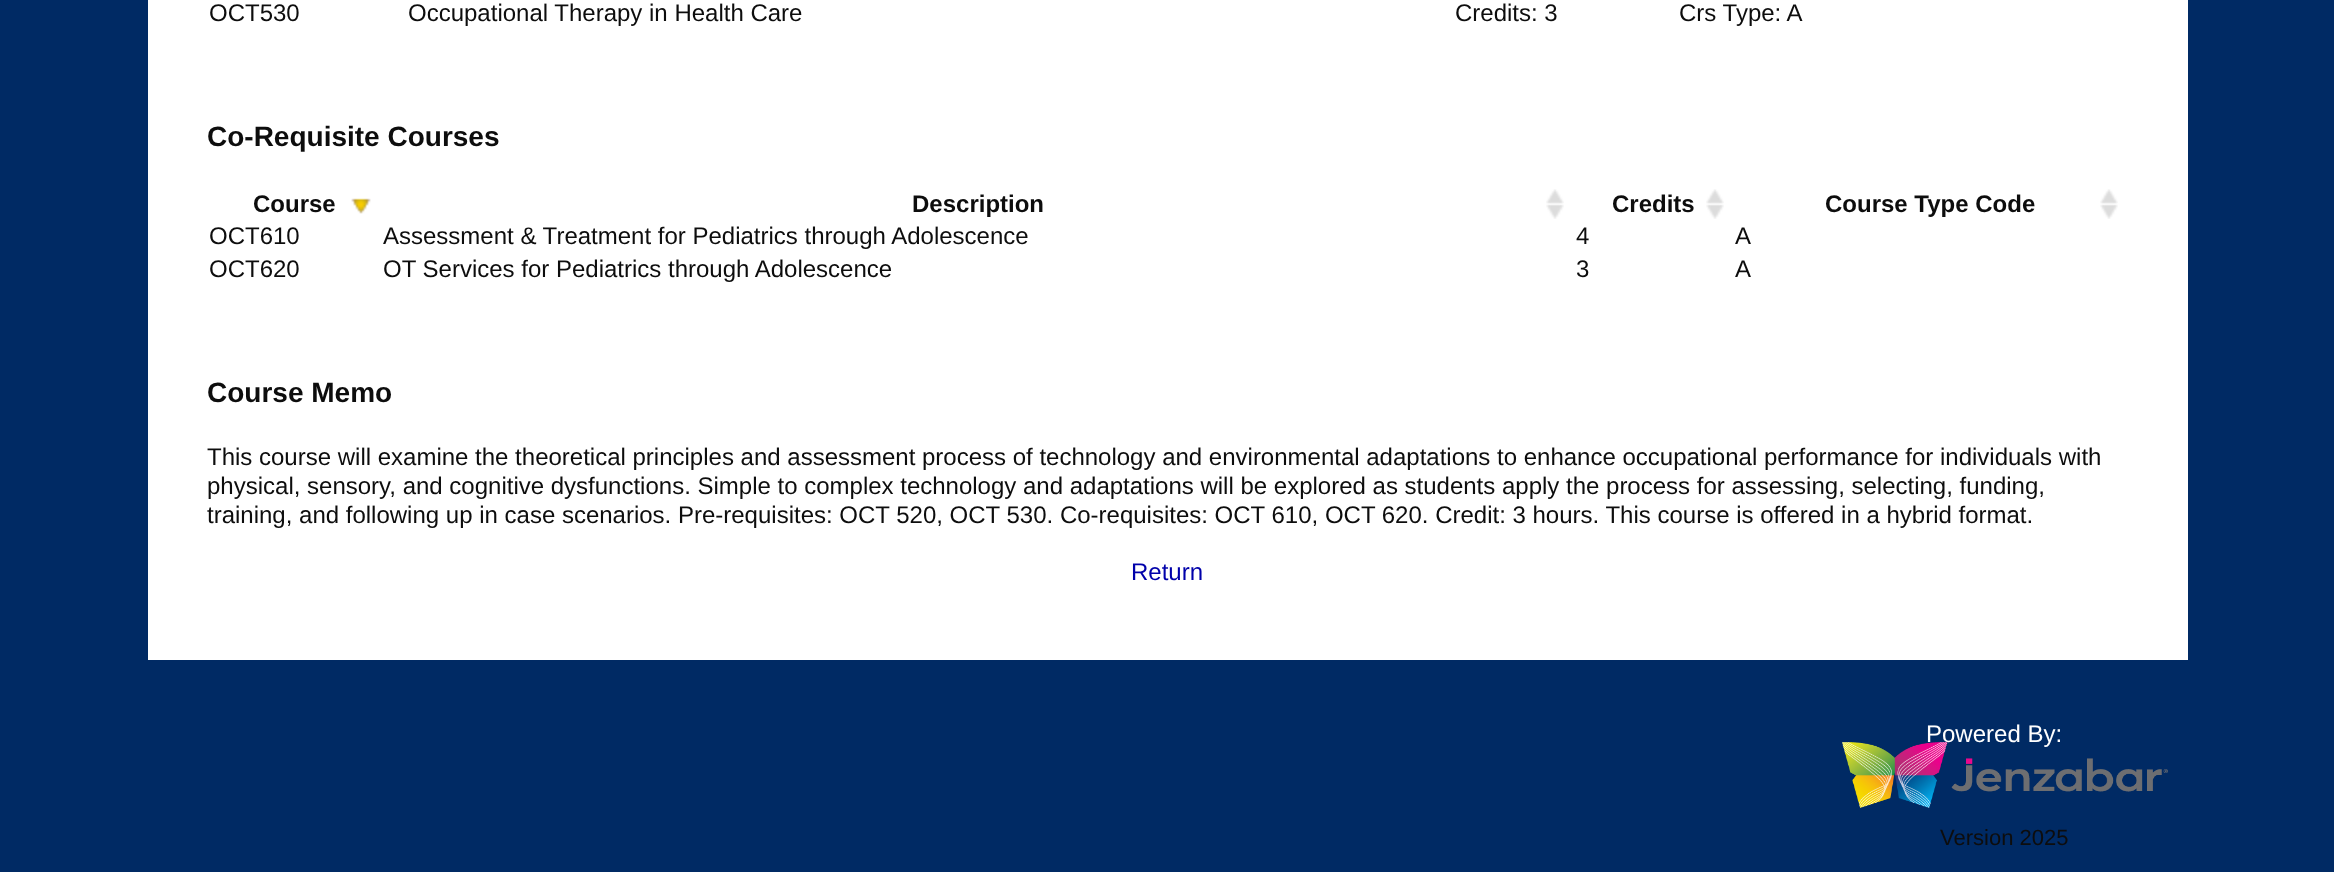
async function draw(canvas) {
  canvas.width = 2334;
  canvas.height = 872;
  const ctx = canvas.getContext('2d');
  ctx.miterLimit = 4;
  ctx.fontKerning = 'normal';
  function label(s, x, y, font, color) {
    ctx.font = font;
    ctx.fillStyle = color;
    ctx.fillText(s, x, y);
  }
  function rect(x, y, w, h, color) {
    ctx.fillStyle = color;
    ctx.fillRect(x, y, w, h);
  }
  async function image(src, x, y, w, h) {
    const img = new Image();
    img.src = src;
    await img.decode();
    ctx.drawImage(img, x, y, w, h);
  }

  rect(0, 0, 2334, 872, '#002a64');
  rect(148, 0, 2040, 660, '#fff');
  label('OCT530', 209, 21, '24px Liberation Sans', '#0d0d0d');
  label('Occupational Therapy in Health Care', 408, 21, '24px Liberation Sans', '#0d0d0d');
  label('Credits: 3', 1455, 21, '24px Liberation Sans', '#0d0d0d');
  label('Crs Type: A', 1679, 21, '24px Liberation Sans', '#0d0d0d');
  label('Co-Requisite Courses', 207, 146, 'bold 28px Liberation Sans', '#0d0d0d');
  await image('assets/img1.png', 351, 198, 20, 16);
  label('Course', 253, 212, 'bold 24px Liberation Sans', '#0d0d0d');
  await image('assets/img2.png', 1546, 189, 18, 30);
  label('Description', 912, 212, 'bold 24px Liberation Sans', '#0d0d0d');
  await image('assets/img2.png', 1706, 189, 18, 30);
  label('Credits', 1612, 212, 'bold 24px Liberation Sans', '#0d0d0d');
  await image('assets/img2.png', 2100, 189, 18, 30);
  label('Course Type Code', 1825, 212, 'bold 24px Liberation Sans', '#0d0d0d');
  label('OCT610', 209, 244, '24px Liberation Sans', '#0d0d0d');
  label('Assessment & Treatment for Pediatrics through Adolescence', 383, 244, '24px Liberation Sans', '#0d0d0d');
  label('4', 1576, 244, '24px Liberation Sans', '#0d0d0d');
  label('A', 1735, 244, '24px Liberation Sans', '#0d0d0d');
  label('OCT620', 209, 277, '24px Liberation Sans', '#0d0d0d');
  label('OT Services for Pediatrics through Adolescence', 383, 277, '24px Liberation Sans', '#0d0d0d');
  label('3', 1576, 277, '24px Liberation Sans', '#0d0d0d');
  label('A', 1735, 277, '24px Liberation Sans', '#0d0d0d');
  label('Course Memo', 207, 402, 'bold 28px Liberation Sans', '#0d0d0d');
  label('This course will examine the theoretical principles and assessment process of technology and environmental adaptations to enhance occupational performance for individuals with', 207, 465, '24px Liberation Sans', '#0d0d0d');
  label('physical, sensory, and cognitive dysfunctions. Simple to complex technology and adaptations will be explored as students apply the process for assessing, selecting, funding,', 207, 494, '24px Liberation Sans', '#0d0d0d');
  label('training, and following up in case scenarios. Pre-requisites: OCT 520, OCT 530. Co-requisites: OCT 610, OCT 620. Credit: 3 hours. This course is offered in a hybrid format.', 207, 523, '24px Liberation Sans', '#0d0d0d');
  label('Return', 1131, 580, '24px Liberation Sans', '#00a');
  label('Powered By:', 1926, 742, '24px Liberation Sans', '#fff');
  await image('assets/img3.png', 1842, 742, 326, 66);
  label('Version 2025', 1940, 845, '22px Liberation Sans', '#0d0d0d');
}

draw(document.querySelector('canvas'));
